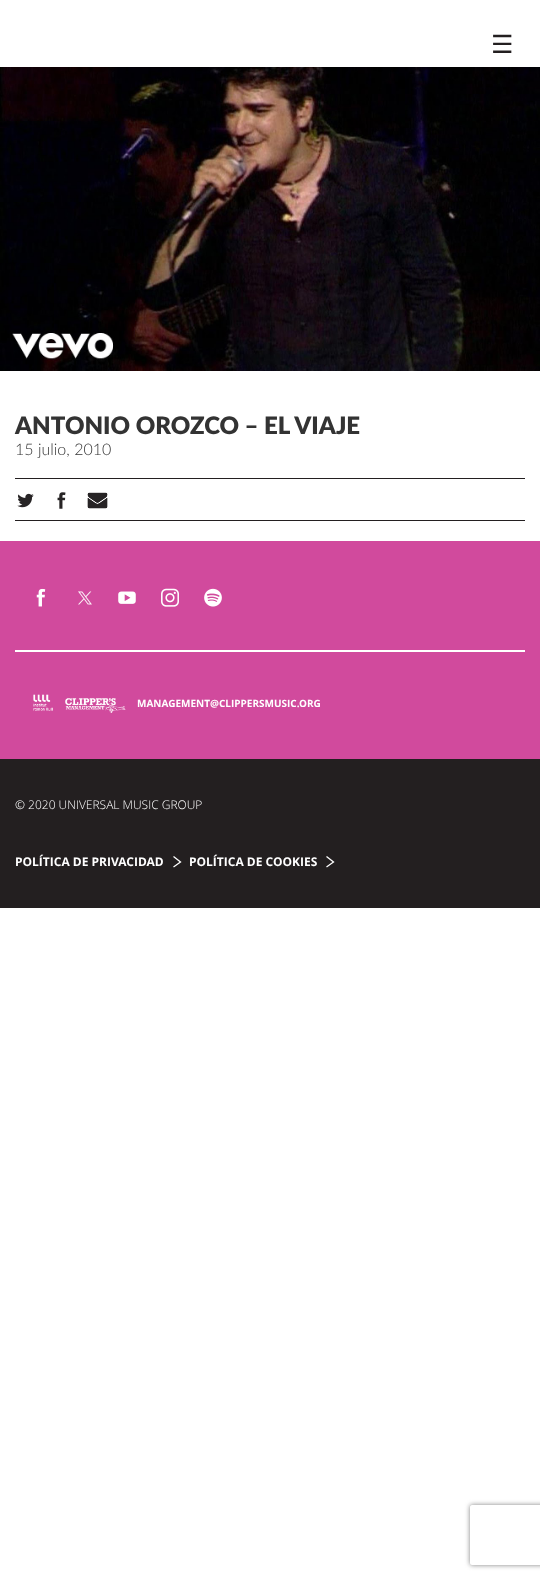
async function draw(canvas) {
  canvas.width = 540;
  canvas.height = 1579;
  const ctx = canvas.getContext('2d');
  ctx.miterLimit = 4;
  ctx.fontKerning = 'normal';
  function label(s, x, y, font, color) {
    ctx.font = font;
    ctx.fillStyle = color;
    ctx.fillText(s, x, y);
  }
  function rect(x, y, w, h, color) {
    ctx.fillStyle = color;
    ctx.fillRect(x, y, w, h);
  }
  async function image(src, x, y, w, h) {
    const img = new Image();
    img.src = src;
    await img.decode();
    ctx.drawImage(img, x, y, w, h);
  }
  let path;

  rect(0, 0, 540, 1579, '#fff');
  label('☰', 491, 53, '25px DejaVu Sans', '#231f20');
  await image('assets/img1.png', 0, 67, 540, 304);
  label('ANTONIO OROZCO – EL VIAJE', 15, 434, '900 24px Lato', '#333');
  label('15 julio, 2010', 15, 455, '300 16px Lato', '#333');
  rect(15, 478, 510, 1, '#231f20');
  await image('assets/img2.png', 17, 493, 17, 15);
  await image('assets/img3.png', 57, 492, 9, 17);
  await image('assets/img4.png', 87, 492, 21, 17);
  rect(15, 520, 510, 1, '#231f20');
  rect(0, 541, 540, 218, '#d14a9d');
  await image('assets/img5.png', 36, 588, 10, 19);
  await image('assets/img6.png', 78, 591, 14, 14);
  await image('assets/img7.png', 118, 591, 18, 13);
  await image('assets/img8.png', 161, 588, 18, 19);
  await image('assets/img9.png', 204, 588, 18, 19);
  rect(15, 650, 510, 2, '#fff');
  await image('assets/img10.png', 33, 694, 93, 19);
  label('MANAGEMENT@CLIPPERSMUSIC.ORG', 137, 707, 'bold 10px Open Sans', '#fff');
  rect(0, 759, 540, 149, '#231f20');
  label('© 2020 UNIVERSAL MUSIC GROUP', 15, 809, '300 12px Open Sans', '#fff');
  label('POLÍTICA DE PRIVACIDAD', 15, 866, 'bold 12px Open Sans', '#fff');
  path = new Path2D('M173.5 856.5L180.5 862L173.5 867');
  ctx.strokeStyle = '#fff';
  ctx.lineWidth = 1.3;
  ctx.stroke(path);
  label('POLÍTICA DE COOKIES', 189, 866, 'bold 12px Open Sans', '#fff');
  path = new Path2D('M326.5 856.5L333.5 862L326.5 867');
  ctx.stroke(path);
  ctx.save();
  path = new Path2D('M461 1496H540V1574H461ZM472 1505H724C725 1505 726 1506 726 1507V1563C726 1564 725 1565 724 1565H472C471 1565 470 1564 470 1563V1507C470 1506 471 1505 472 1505Z');
  ctx.clip(path, 'evenodd');
  ctx.fillStyle = '#808080';
  ctx.filter = 'blur(2.5px)';
  ctx.beginPath();
  ctx.roundRect(470, 1505, 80, 60, 2);
  ctx.fill();
  ctx.filter = 'none';
  ctx.restore();
}

draw(document.querySelector('canvas'));
